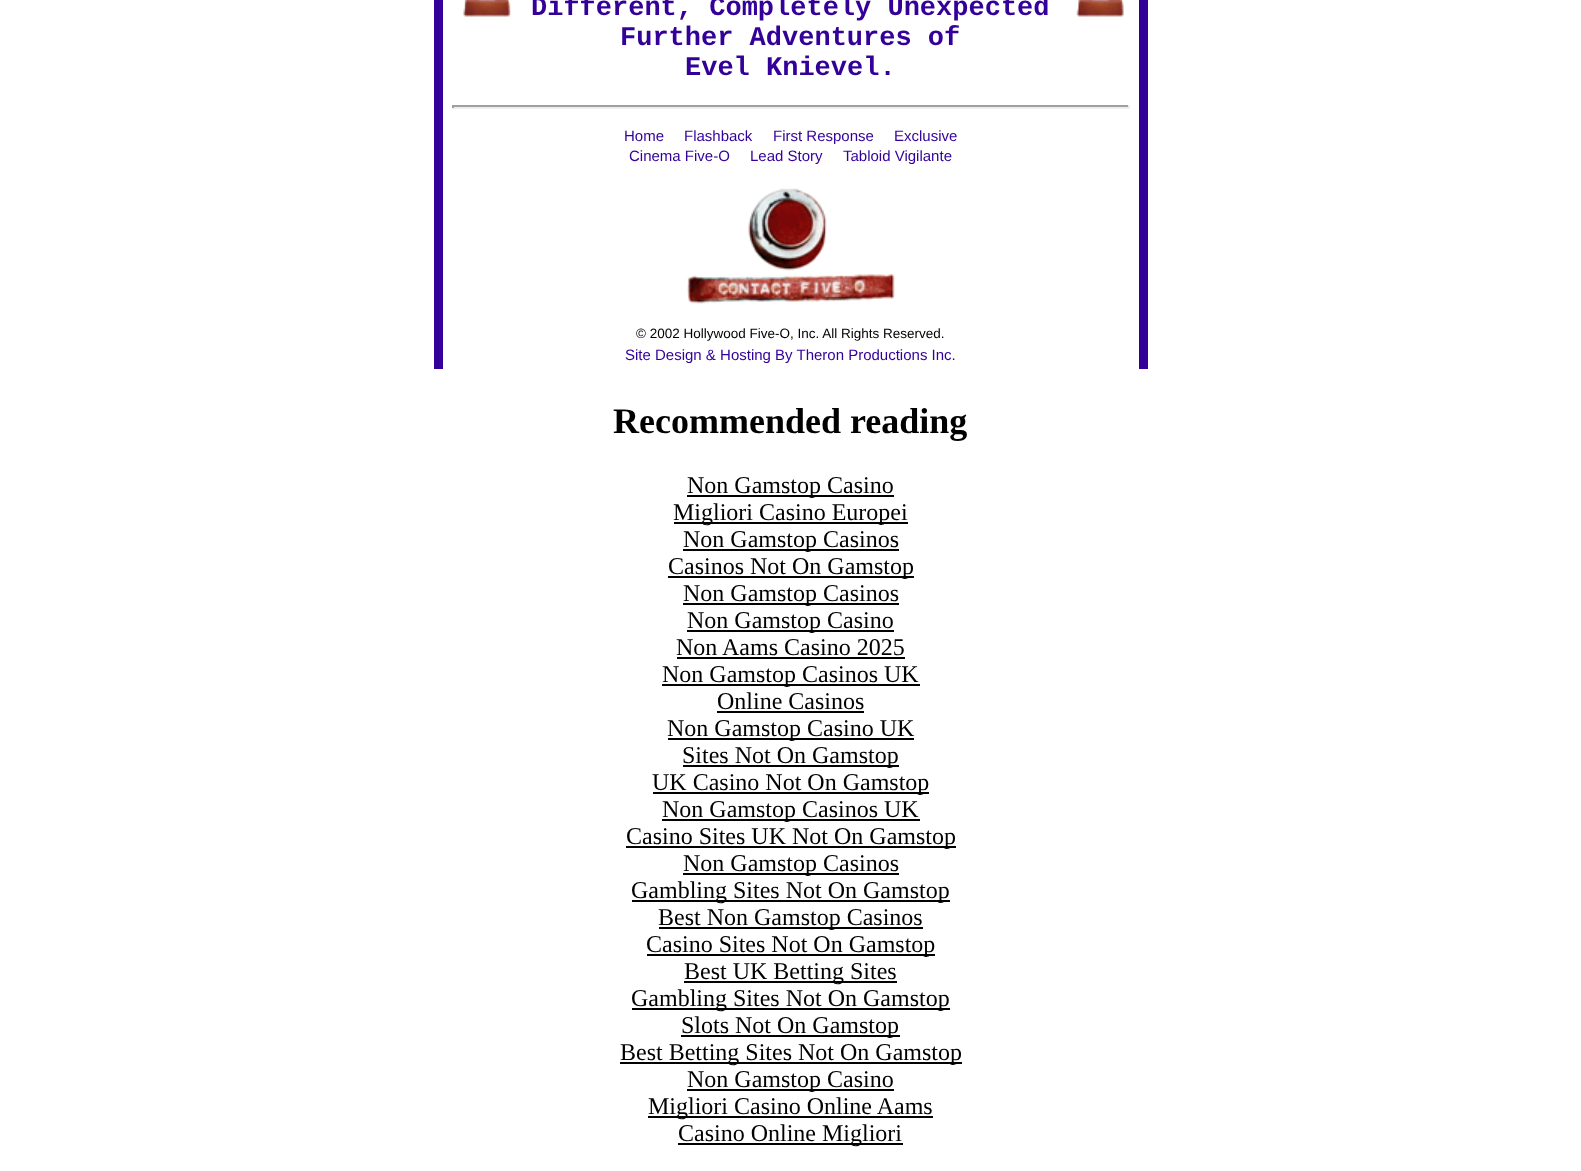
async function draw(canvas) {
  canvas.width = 1581;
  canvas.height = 1171;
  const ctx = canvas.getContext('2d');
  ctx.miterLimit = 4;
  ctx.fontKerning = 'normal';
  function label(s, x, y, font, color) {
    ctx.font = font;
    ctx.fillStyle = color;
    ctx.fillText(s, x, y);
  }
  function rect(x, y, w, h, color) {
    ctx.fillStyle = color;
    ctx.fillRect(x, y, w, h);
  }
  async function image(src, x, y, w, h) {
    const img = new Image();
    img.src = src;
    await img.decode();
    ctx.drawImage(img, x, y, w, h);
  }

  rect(0, 0, 1581, 1171, '#fff');
  rect(434, 0, 9, 369, '#309');
  await image('assets/img1.png', 463, 0, 48, 17);
  label('Different, Completely Unexpected', 531, 15, 'bold 27px Liberation Mono', '#309');
  label('Further Adventures of', 620, 45, 'bold 27px Liberation Mono', '#309');
  label('Evel Knievel.', 685, 75, 'bold 27px Liberation Mono', '#309');
  await image('assets/img2.png', 1076, 0, 48, 17);
  rect(452, 105, 678, 2, '#9f9f9f');
  rect(1128, 105, 2, 3, '#eee');
  rect(452, 107, 678, 2, '#eee');
  rect(452, 105, 2, 3, '#9f9f9f');
  label('Home', 624, 141, '15px Liberation Sans', '#309');
  label('Flashback', 684, 141, '15px Liberation Sans', '#309');
  label('First Response', 773, 141, '15px Liberation Sans', '#309');
  label('Exclusive', 894, 141, '15px Liberation Sans', '#309');
  label('Cinema Five-O', 629, 161, '15px Liberation Sans', '#309');
  label('Lead Story', 750, 161, '15px Liberation Sans', '#309');
  label('Tabloid Vigilante', 843, 161, '15px Liberation Sans', '#309');
  await image('assets/img3.png', 687, 188, 208, 116);
  label('© 2002 Hollywood Five-O, Inc. All Rights Reserved.', 636, 338, '13.5px Liberation Sans', '#000');
  label('Site Design & Hosting By Theron Productions Inc.', 625, 360, '15px Liberation Sans', '#309');
  rect(1139, 0, 9, 369, '#309');
  label('Recommended reading', 613, 433, 'bold 36px Liberation Serif', '#000');
  rect(687, 495, 207, 2, '#000');
  label('Non Gamstop Casino', 687, 493, '24px Liberation Serif', '#000');
  rect(674, 522, 234, 2, '#000');
  label('Migliori Casino Europei', 673, 520, '24px Liberation Serif', '#000');
  rect(683, 549, 216, 2, '#000');
  label('Non Gamstop Casinos', 683, 547, '24px Liberation Serif', '#000');
  rect(668, 576, 246, 2, '#000');
  label('Casinos Not On Gamstop', 668, 574, '24px Liberation Serif', '#000');
  rect(683, 603, 216, 2, '#000');
  label('Non Gamstop Casinos', 683, 601, '24px Liberation Serif', '#000');
  rect(687, 630, 207, 2, '#000');
  label('Non Gamstop Casino', 687, 628, '24px Liberation Serif', '#000');
  label('Non Aams Casino 2025', 676, 655, '24px Liberation Serif', '#000');
  rect(677, 657, 228, 2, '#000');
  rect(662, 684, 258, 2, '#000');
  label('Non Gamstop Casinos UK', 662, 682, '24px Liberation Serif', '#000');
  label('Online Casinos', 717, 709, '24px Liberation Serif', '#000');
  rect(717, 711, 147, 2, '#000');
  rect(668, 738, 246, 2, '#000');
  label('Non Gamstop Casino UK', 667, 736, '24px Liberation Serif', '#000');
  rect(683, 765, 216, 2, '#000');
  label('Sites Not On Gamstop', 682, 763, '24px Liberation Serif', '#000');
  rect(653, 792, 276, 2, '#000');
  label('UK Casino Not On Gamstop', 652, 790, '24px Liberation Serif', '#000');
  rect(662, 819, 258, 2, '#000');
  label('Non Gamstop Casinos UK', 662, 817, '24px Liberation Serif', '#000');
  rect(626, 846, 330, 2, '#000');
  label('Casino Sites UK Not On Gamstop', 626, 844, '24px Liberation Serif', '#000');
  rect(683, 873, 216, 2, '#000');
  label('Non Gamstop Casinos', 683, 871, '24px Liberation Serif', '#000');
  rect(632, 900, 318, 2, '#000');
  label('Gambling Sites Not On Gamstop', 631, 898, '24px Liberation Serif', '#000');
  rect(659, 927, 264, 2, '#000');
  label('Best Non Gamstop Casinos', 658, 925, '24px Liberation Serif', '#000');
  rect(647, 954, 288, 2, '#000');
  label('Casino Sites Not On Gamstop', 646, 952, '24px Liberation Serif', '#000');
  rect(684, 981, 213, 2, '#000');
  label('Best UK Betting Sites', 684, 979, '24px Liberation Serif', '#000');
  rect(632, 1008, 318, 2, '#000');
  label('Gambling Sites Not On Gamstop', 631, 1006, '24px Liberation Serif', '#000');
  rect(681, 1035, 219, 2, '#000');
  label('Slots Not On Gamstop', 681, 1033, '24px Liberation Serif', '#000');
  rect(620, 1062, 342, 2, '#000');
  label('Best Betting Sites Not On Gamstop', 620, 1060, '24px Liberation Serif', '#000');
  rect(687, 1089, 207, 2, '#000');
  label('Non Gamstop Casino', 687, 1087, '24px Liberation Serif', '#000');
  rect(648, 1116, 285, 2, '#000');
  label('Migliori Casino Online Aams', 648, 1114, '24px Liberation Serif', '#000');
  rect(678, 1143, 225, 2, '#000');
  label('Casino Online Migliori', 678, 1141, '24px Liberation Serif', '#000');
}

draw(document.querySelector('canvas'));
